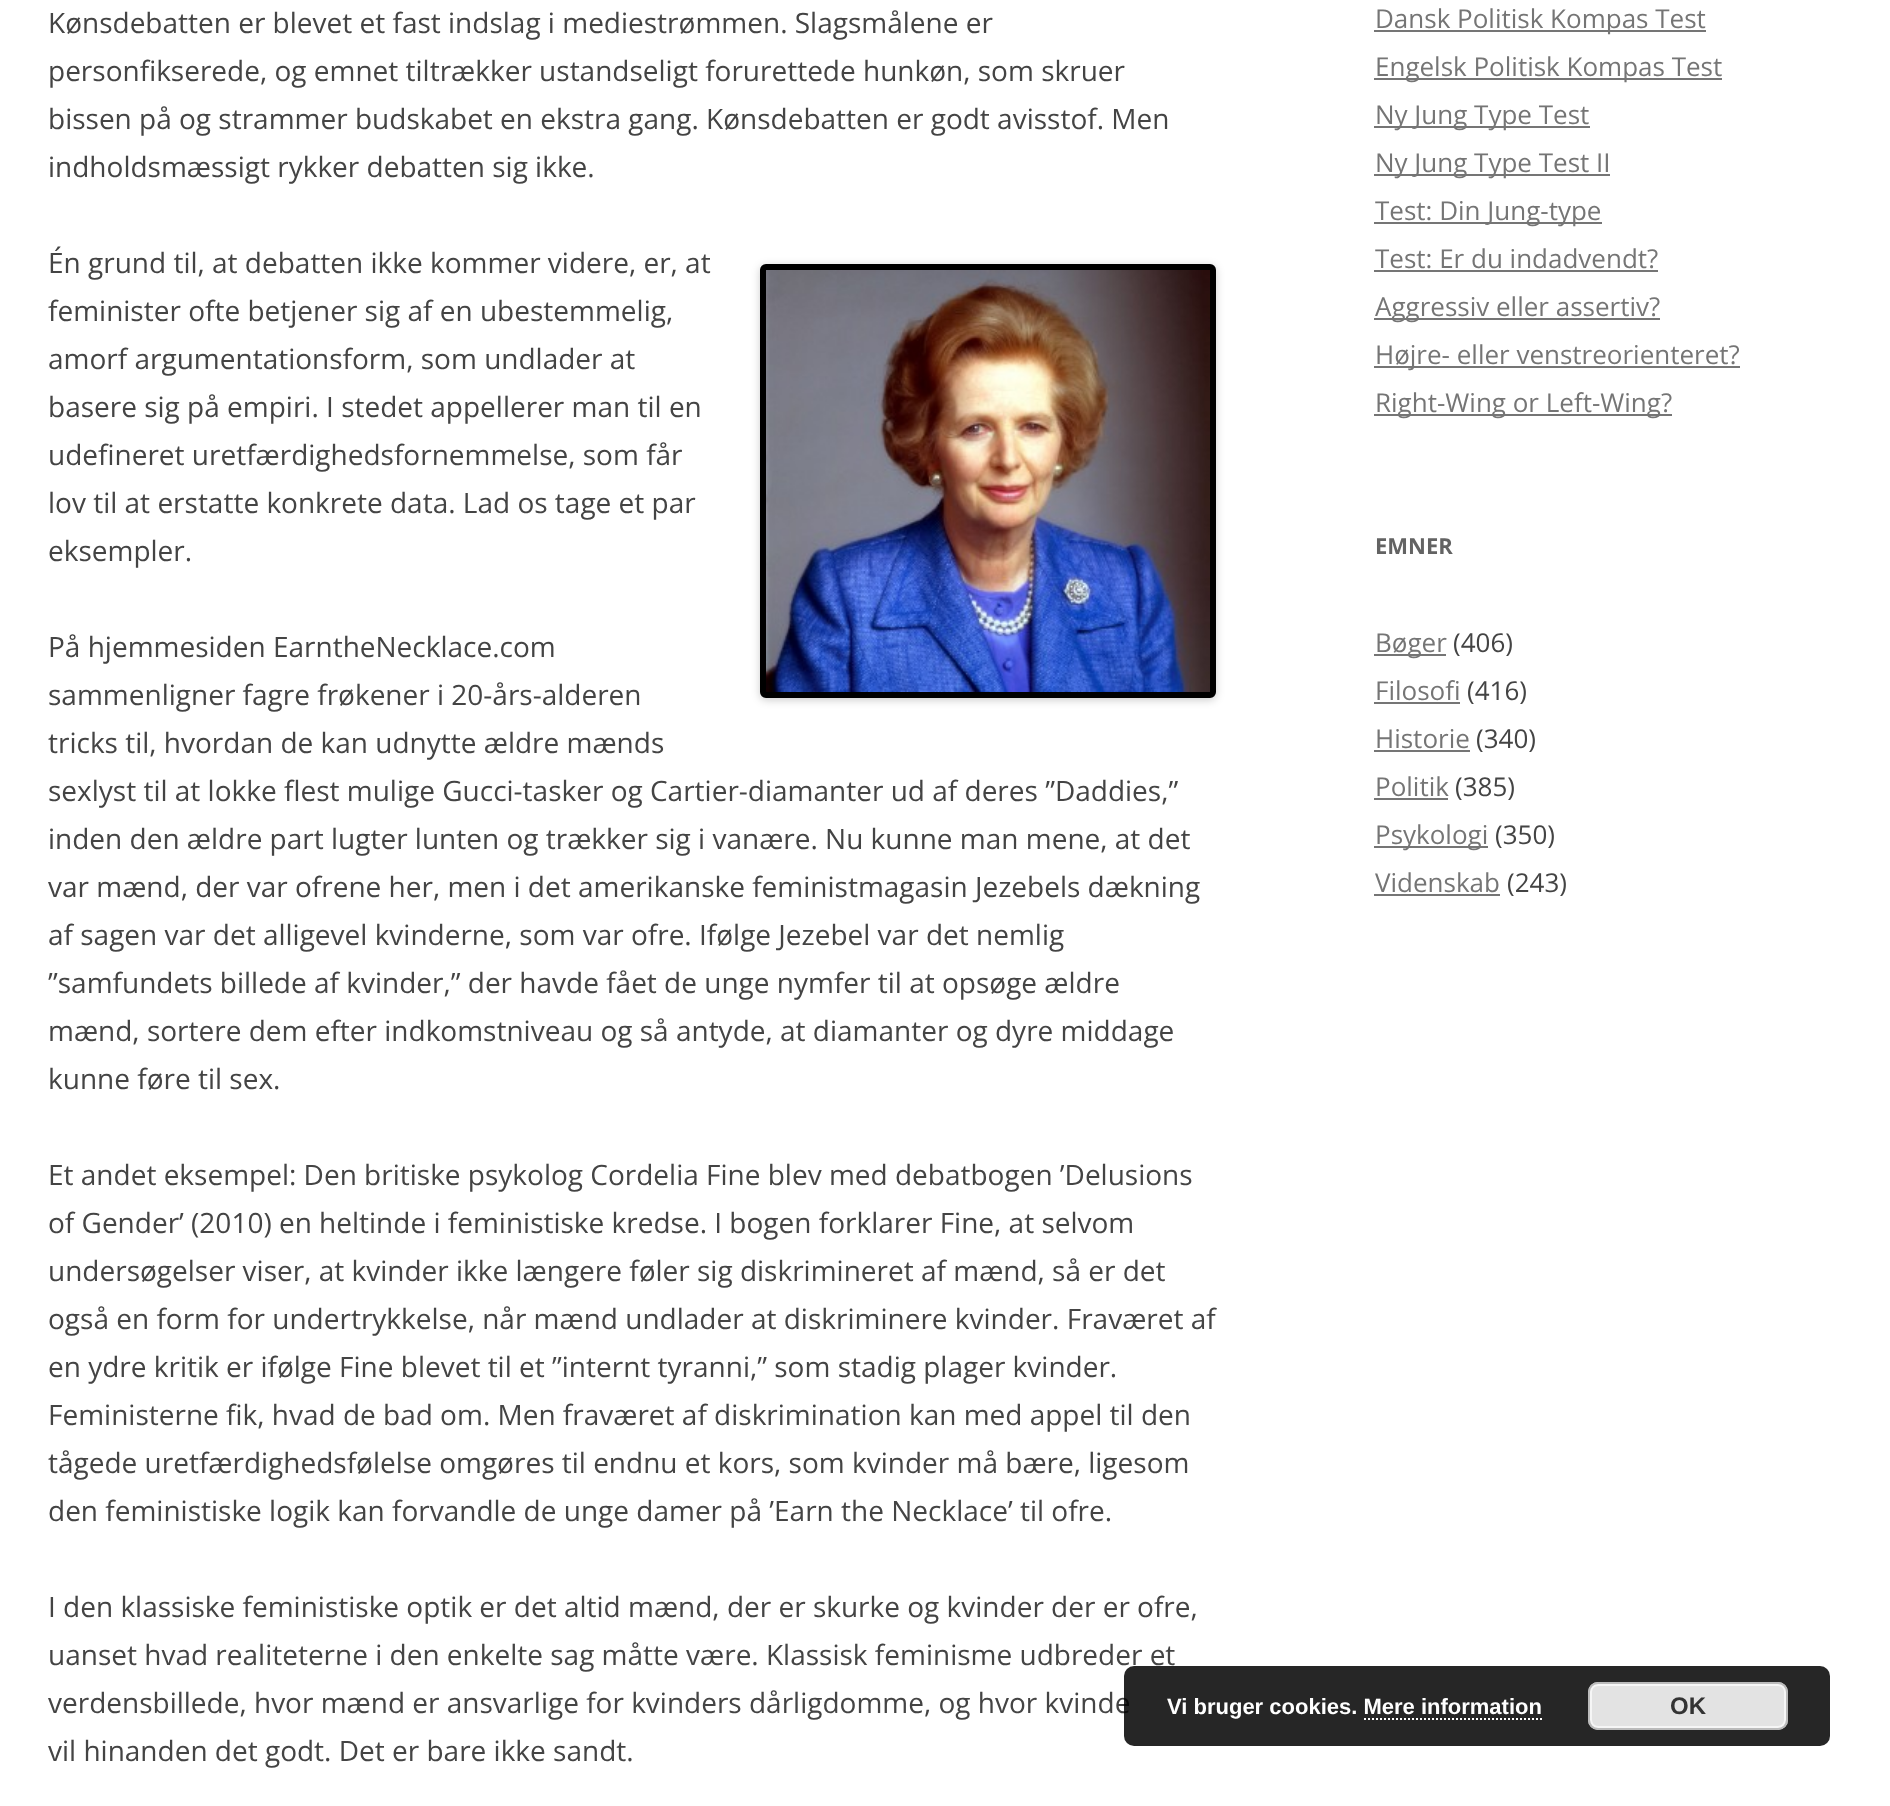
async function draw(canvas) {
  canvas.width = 1890;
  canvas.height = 1806;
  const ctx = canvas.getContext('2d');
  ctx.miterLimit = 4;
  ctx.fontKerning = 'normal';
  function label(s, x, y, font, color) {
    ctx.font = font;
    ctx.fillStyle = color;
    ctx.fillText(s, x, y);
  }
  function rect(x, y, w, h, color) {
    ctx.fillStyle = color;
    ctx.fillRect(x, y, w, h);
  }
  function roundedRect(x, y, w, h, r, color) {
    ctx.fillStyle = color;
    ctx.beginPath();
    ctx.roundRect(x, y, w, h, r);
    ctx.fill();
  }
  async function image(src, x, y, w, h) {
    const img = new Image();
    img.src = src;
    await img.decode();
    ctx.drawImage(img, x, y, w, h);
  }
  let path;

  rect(0, 0, 1890, 1806, '#fff');
  label('Kønsdebatten er blevet et fast indslag i mediestrømmen. Slagsmålene er', 48, 33, '28px Open Sans', '#444');
  label('personfikserede, og emnet tiltrækker ustandseligt forurettede hunkøn, som skruer', 48, 81, '28px Open Sans', '#444');
  label('bissen på og strammer budskabet en ekstra gang. Kønsdebatten er godt avisstof. Men', 48, 129, '28px Open Sans', '#444');
  label('indholdsmæssigt rykker debatten sig ikke.', 48, 177, '28px Open Sans', '#444');
  label('Én grund til, at debatten ikke kommer videre, er, at', 48, 273, '28px Open Sans', '#444');
  ctx.fillStyle = '#00000033';
  ctx.filter = 'blur(4px)';
  ctx.beginPath();
  ctx.roundRect(760, 266, 456, 434, 6);
  ctx.fill();
  ctx.filter = 'none';
  ctx.beginPath();
  ctx.roundRect(763, 267, 450, 428, 3);
  ctx.strokeStyle = '#000';
  ctx.lineWidth = 6;
  ctx.stroke();
  await image('assets/img1.png', 766, 270, 444, 422);
  label('feminister ofte betjener sig af en ubestemmelig,', 48, 321, '28px Open Sans', '#444');
  label('amorf argumentationsform, som undlader at', 48, 369, '28px Open Sans', '#444');
  label('basere sig på empiri. I stedet appellerer man til en', 48, 417, '28px Open Sans', '#444');
  label('udefineret uretfærdighedsfornemmelse, som får', 48, 465, '28px Open Sans', '#444');
  label('lov til at erstatte konkrete data. Lad os tage et par', 48, 513, '28px Open Sans', '#444');
  label('eksempler.', 48, 561, '28px Open Sans', '#444');
  label('På hjemmesiden EarntheNecklace.com', 48, 657, '28px Open Sans', '#444');
  label('sammenligner fagre frøkener i 20-års-alderen', 48, 705, '28px Open Sans', '#444');
  label('tricks til, hvordan de kan udnytte ældre mænds', 48, 753, '28px Open Sans', '#444');
  label('sexlyst til at lokke flest mulige Gucci-tasker og Cartier-diamanter ud af deres ”Daddies,”', 48, 801, '28px Open Sans', '#444');
  label('inden den ældre part lugter lunten og trækker sig i vanære. Nu kunne man mene, at det', 48, 849, '28px Open Sans', '#444');
  label('var mænd, der var ofrene her, men i det amerikanske feministmagasin Jezebels dækning', 48, 897, '28px Open Sans', '#444');
  label('af sagen var det alligevel kvinderne, som var ofre. Ifølge Jezebel var det nemlig', 48, 945, '28px Open Sans', '#444');
  label('”samfundets billede af kvinder,” der havde fået de unge nymfer til at opsøge ældre', 48, 993, '28px Open Sans', '#444');
  label('mænd, sortere dem efter indkomstniveau og så antyde, at diamanter og dyre middage', 48, 1041, '28px Open Sans', '#444');
  label('kunne føre til sex.', 48, 1089, '28px Open Sans', '#444');
  label('Et andet eksempel: Den britiske psykolog Cordelia Fine blev med debatbogen ’Delusions', 48, 1185, '28px Open Sans', '#444');
  label('of Gender’ (2010) en heltinde i feministiske kredse. I bogen forklarer Fine, at selvom', 48, 1233, '28px Open Sans', '#444');
  label('undersøgelser viser, at kvinder ikke længere føler sig diskrimineret af mænd, så er det', 48, 1281, '28px Open Sans', '#444');
  label('også en form for undertrykkelse, når mænd undlader at diskriminere kvinder. Fraværet af', 48, 1329, '28px Open Sans', '#444');
  label('en ydre kritik er ifølge Fine blevet til et ”internt tyranni,” som stadig plager kvinder.', 48, 1377, '28px Open Sans', '#444');
  label('Feministerne fik, hvad de bad om. Men fraværet af diskrimination kan med appel til den', 48, 1425, '28px Open Sans', '#444');
  label('tågede uretfærdighedsfølelse omgøres til endnu et kors, som kvinder må bære, ligesom', 48, 1473, '28px Open Sans', '#444');
  label('den feministiske logik kan forvandle de unge damer på ’Earn the Necklace’ til ofre.', 48, 1521, '28px Open Sans', '#444');
  label('I den klassiske feministiske optik er det altid mænd, der er skurke og kvinder der er ofre,', 48, 1617, '28px Open Sans', '#444');
  label('uanset hvad realiteterne i den enkelte sag måtte være. Klassisk feminisme udbreder et', 48, 1665, '28px Open Sans', '#444');
  label('verdensbillede, hvor mænd er ansvarlige for kvinders dårligdomme, og hvor kvinde', 48, 1713, '28px Open Sans', '#444');
  label('vil hinanden det godt. Det er bare ikke sandt.', 48, 1761, '28px Open Sans', '#444');
  rect(1374, 30, 332, 2, '#757575');
  label('Dansk Politisk Kompas Test', 1375, 28, '26px Open Sans', '#757575');
  rect(1374, 78, 348, 2, '#757575');
  label('Engelsk Politisk Kompas Test', 1375, 76, '26px Open Sans', '#757575');
  rect(1374, 126, 216, 2, '#757575');
  label('Ny Jung Type Test', 1375, 124, '26px Open Sans', '#757575');
  rect(1374, 174, 236, 2, '#757575');
  label('Ny Jung Type Test II', 1375, 172, '26px Open Sans', '#757575');
  rect(1374, 222, 228, 2, '#757575');
  label('Test: Din Jung-type', 1375, 220, '26px Open Sans', '#757575');
  label('Test: Er du indadvendt?', 1375, 268, '26px Open Sans', '#757575');
  rect(1374, 270, 284, 2, '#757575');
  rect(1374, 318, 286, 2, '#757575');
  label('Aggressiv eller assertiv?', 1375, 316, '26px Open Sans', '#757575');
  rect(1374, 366, 366, 2, '#757575');
  label('Højre- eller venstreorienteret?', 1375, 364, '26px Open Sans', '#757575');
  rect(1374, 414, 298, 2, '#757575');
  label('Right-Wing or Left-Wing?', 1375, 412, '26px Open Sans', '#757575');
  label('EMNER', 1375, 554, 'bold 22px Open Sans', '#636363');
  rect(1374, 654, 72, 2, '#757575');
  label('Bøger', 1375, 652, '26px Open Sans', '#757575');
  label('(406)', 1453, 652, '26px Open Sans', '#444');
  label('Filosofi', 1375, 700, '26px Open Sans', '#757575');
  rect(1374, 702, 86, 2, '#757575');
  label('(416)', 1467, 700, '26px Open Sans', '#444');
  label('Historie', 1375, 748, '26px Open Sans', '#757575');
  rect(1374, 750, 96, 2, '#757575');
  label('(340)', 1476, 748, '26px Open Sans', '#444');
  label('Politik', 1375, 796, '26px Open Sans', '#757575');
  rect(1374, 798, 74, 2, '#757575');
  label('(385)', 1455, 796, '26px Open Sans', '#444');
  rect(1374, 846, 114, 2, '#757575');
  label('Psykologi', 1375, 844, '26px Open Sans', '#757575');
  label('(350)', 1495, 844, '26px Open Sans', '#444');
  label('Videnskab', 1375, 892, '26px Open Sans', '#757575');
  rect(1374, 894, 126, 2, '#757575');
  label('(243)', 1507, 892, '26px Open Sans', '#444');
  roundedRect(1124, 1666, 706, 80, 10, '#000000d9');
  label('Vi bruger cookies. Mere information', 1167, 1714, 'bold 22px Liberation Sans', '#fff');
  roundedRect(1588, 1682, 200, 48, 10, '#e3e3e3');
  ctx.beginPath();
  ctx.roundRect(1591, 1685, 194, 42, 7);
  ctx.strokeStyle = '#f6f6f6';
  ctx.lineWidth = 2;
  ctx.stroke();
  ctx.beginPath();
  ctx.roundRect(1589, 1683, 198, 46, 9);
  ctx.strokeStyle = '#bbb';
  ctx.stroke();
  label('OK', 1670, 1714, 'bold 24px Liberation Sans', '#333');
  path = new Path2D('M1364 1719H1542');
  ctx.strokeStyle = '#fff';
  ctx.setLineDash([2, 2]);
  ctx.stroke(path);
}

draw(document.querySelector('canvas'));
